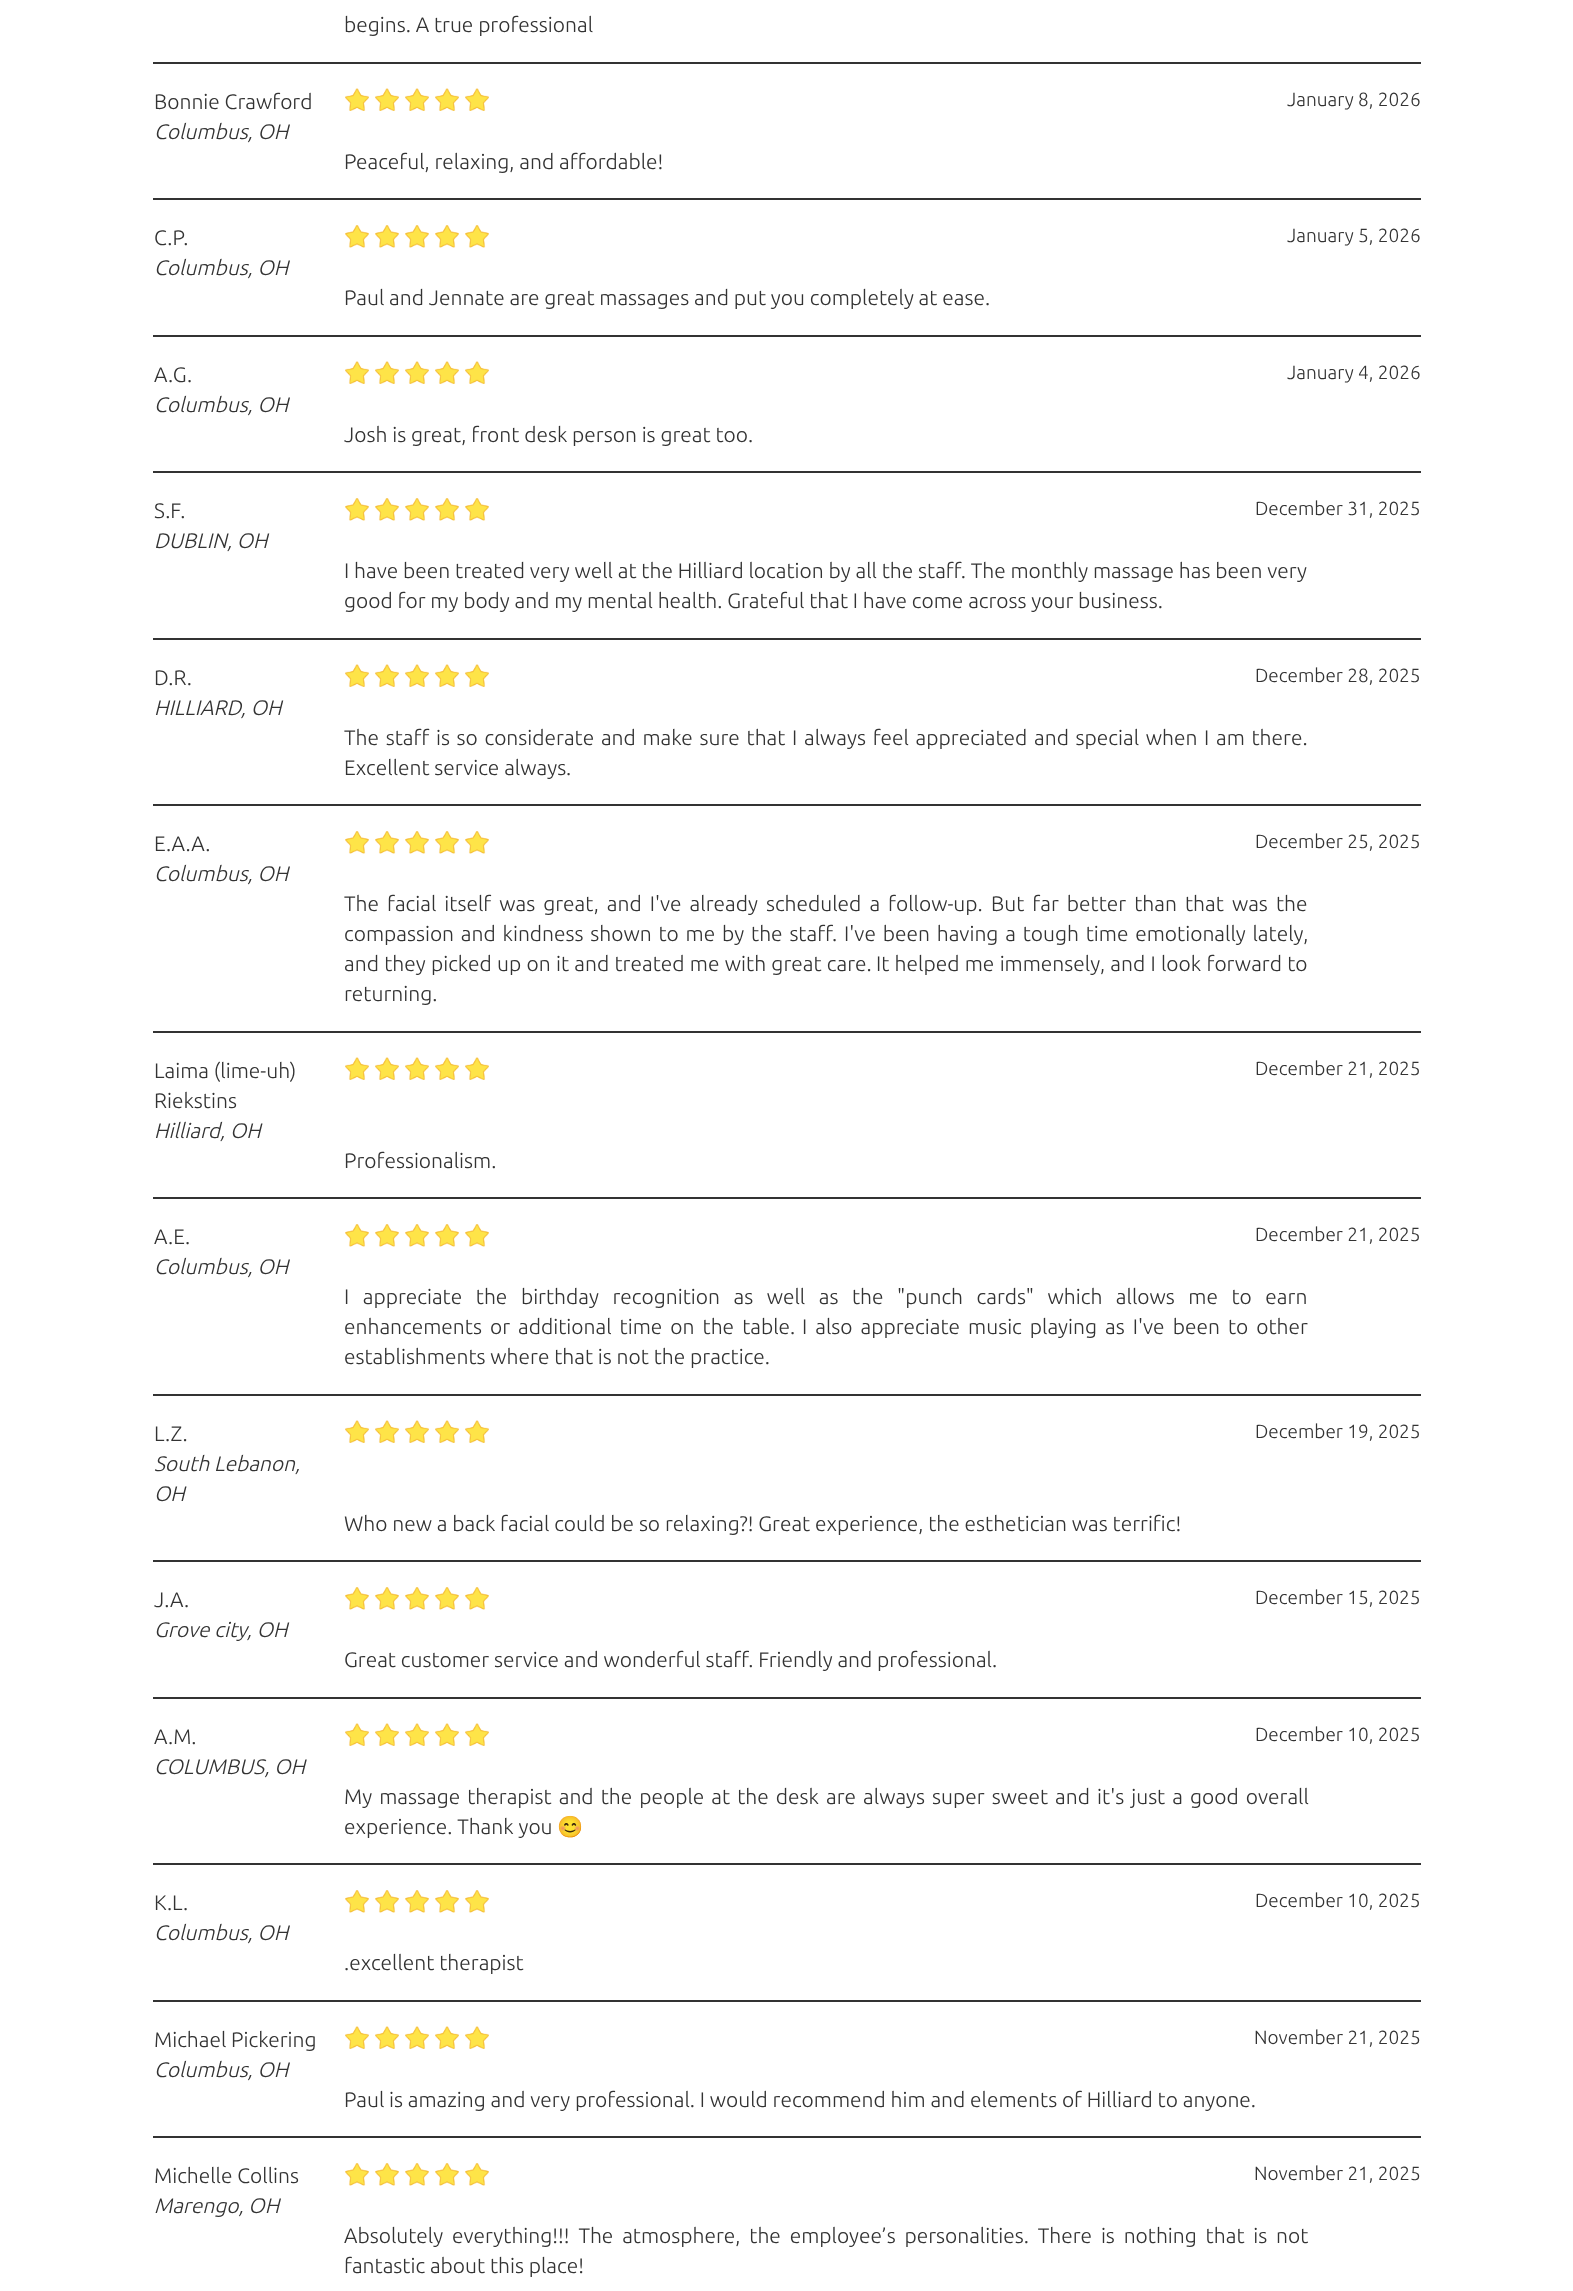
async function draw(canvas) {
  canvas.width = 1573;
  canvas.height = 2291;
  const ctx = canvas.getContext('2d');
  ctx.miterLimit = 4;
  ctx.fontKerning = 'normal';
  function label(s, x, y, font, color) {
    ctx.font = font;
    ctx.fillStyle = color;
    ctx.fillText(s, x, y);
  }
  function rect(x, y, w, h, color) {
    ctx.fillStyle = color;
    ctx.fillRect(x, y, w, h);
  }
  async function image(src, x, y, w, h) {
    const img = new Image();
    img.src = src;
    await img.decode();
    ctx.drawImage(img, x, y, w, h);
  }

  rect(0, 0, 1573, 2291, '#fff');
  label('begins. A true professional', 344, 32, '300 21px Ubuntu', '#333');
  rect(153, 62, 1268, 2, '#333');
  label('Bonnie Crawford', 154, 109, '300 21px Ubuntu', '#333');
  label('Columbus, OH', 154, 139, 'italic 300 21px Ubuntu', '#333');
  await image('assets/img1.png', 345, 88, 24, 23);
  await image('assets/img1.png', 375, 88, 24, 23);
  await image('assets/img1.png', 405, 88, 24, 23);
  await image('assets/img1.png', 435, 88, 24, 23);
  await image('assets/img1.png', 465, 88, 24, 23);
  label('January 8, 2026', 1287, 106, '300 19px Ubuntu', '#333');
  label('Peaceful, relaxing, and affordable!', 344, 169, '300 21px Ubuntu', '#333');
  rect(153, 198, 1268, 2, '#333');
  label('C.P.', 154, 245, '300 21px Ubuntu', '#333');
  label('Columbus, OH', 154, 275, 'italic 300 21px Ubuntu', '#333');
  await image('assets/img2.png', 345, 225, 24, 23);
  await image('assets/img2.png', 375, 225, 24, 23);
  await image('assets/img2.png', 405, 225, 24, 23);
  await image('assets/img2.png', 435, 225, 24, 23);
  await image('assets/img2.png', 465, 225, 24, 23);
  label('January 5, 2026', 1287, 242, '300 19px Ubuntu', '#333');
  label('Paul and Jennate are great massages and put you completely at ease.', 344, 305, '300 21px Ubuntu', '#333');
  rect(153, 335, 1268, 2, '#333');
  label('A.G.', 154, 382, '300 21px Ubuntu', '#333');
  label('Columbus, OH', 154, 412, 'italic 300 21px Ubuntu', '#333');
  await image('assets/img1.png', 345, 361, 24, 23);
  await image('assets/img1.png', 375, 361, 24, 23);
  await image('assets/img1.png', 405, 361, 24, 23);
  await image('assets/img1.png', 435, 361, 24, 23);
  await image('assets/img1.png', 465, 361, 24, 23);
  label('January 4, 2026', 1287, 379, '300 19px Ubuntu', '#333');
  label('Josh is great, front desk person is great too.', 344, 442, '300 21px Ubuntu', '#333');
  rect(153, 471, 1268, 2, '#333');
  label('S.F.', 154, 518, '300 21px Ubuntu', '#333');
  label('DUBLIN, OH', 154, 548, 'italic 300 21px Ubuntu', '#333');
  await image('assets/img2.png', 345, 498, 24, 23);
  await image('assets/img2.png', 375, 498, 24, 23);
  await image('assets/img2.png', 405, 498, 24, 23);
  await image('assets/img2.png', 435, 498, 24, 23);
  await image('assets/img2.png', 465, 498, 24, 23);
  label('December 31, 2025', 1255, 515, '300 19px Ubuntu', '#333');
  label('I have been treated very well at the Hilliard location by all the staff. The monthly massage has been very', 344, 578, '300 21px Ubuntu', '#333');
  label('good for my body and my mental health. Grateful that I have come across your business.', 344, 608, '300 21px Ubuntu', '#333');
  rect(153, 638, 1268, 2, '#333');
  label('D.R.', 154, 685, '300 21px Ubuntu', '#333');
  label('HILLIARD, OH', 154, 715, 'italic 300 21px Ubuntu', '#333');
  await image('assets/img1.png', 345, 664, 24, 23);
  await image('assets/img1.png', 375, 664, 24, 23);
  await image('assets/img1.png', 405, 664, 24, 23);
  await image('assets/img1.png', 435, 664, 24, 23);
  await image('assets/img1.png', 465, 664, 24, 23);
  label('December 28, 2025', 1255, 682, '300 19px Ubuntu', '#333');
  ctx.wordSpacing = '1.9px';
  label('The staff is so considerate and make sure that I always feel appreciated and special when I am there.', 344, 745, '300 21px Ubuntu', '#333');
  ctx.wordSpacing = '0px';
  label('Excellent service always.', 344, 775, '300 21px Ubuntu', '#333');
  rect(153, 804, 1268, 2, '#333');
  label('E.A.A.', 154, 851, '300 21px Ubuntu', '#333');
  label('Columbus, OH', 154, 881, 'italic 300 21px Ubuntu', '#333');
  await image('assets/img2.png', 345, 831, 24, 23);
  await image('assets/img2.png', 375, 831, 24, 23);
  await image('assets/img2.png', 405, 831, 24, 23);
  await image('assets/img2.png', 435, 831, 24, 23);
  await image('assets/img2.png', 465, 831, 24, 23);
  label('December 25, 2025', 1255, 848, '300 19px Ubuntu', '#333');
  ctx.wordSpacing = '3.25px';
  label('The facial itself was great, and I\'ve already scheduled a follow-up.', 344, 911, '300 21px Ubuntu', '#333');
  label('But far better than that was the', 991, 911, '300 21px Ubuntu', '#333');
  ctx.wordSpacing = '2px';
  label('compassion and kindness shown to me by the staff. I\'ve been having a tough time emotionally lately,', 344, 941, '300 21px Ubuntu', '#333');
  ctx.wordSpacing = '0.5px';
  label('and they picked up on it and treated me with great care.', 344, 971, '300 21px Ubuntu', '#333');
  label('It helped me immensely, and I look forward to', 876, 971, '300 21px Ubuntu', '#333');
  ctx.wordSpacing = '0px';
  label('returning.', 344, 1001, '300 21px Ubuntu', '#333');
  rect(153, 1031, 1268, 2, '#333');
  label('Laima (lime-uh)', 154, 1078, '300 21px Ubuntu', '#333');
  label('Riekstins', 154, 1108, '300 21px Ubuntu', '#333');
  label('Hilliard, OH', 154, 1138, 'italic 300 21px Ubuntu', '#333');
  await image('assets/img1.png', 345, 1057, 24, 23);
  await image('assets/img1.png', 375, 1057, 24, 23);
  await image('assets/img1.png', 405, 1057, 24, 23);
  await image('assets/img1.png', 435, 1057, 24, 23);
  await image('assets/img1.png', 465, 1057, 24, 23);
  label('December 21, 2025', 1255, 1075, '300 19px Ubuntu', '#333');
  label('Professionalism.', 344, 1168, '300 21px Ubuntu', '#333');
  rect(153, 1197, 1268, 2, '#333');
  label('A.E.', 154, 1244, '300 21px Ubuntu', '#333');
  label('Columbus, OH', 154, 1274, 'italic 300 21px Ubuntu', '#333');
  await image('assets/img2.png', 345, 1224, 24, 23);
  await image('assets/img2.png', 375, 1224, 24, 23);
  await image('assets/img2.png', 405, 1224, 24, 23);
  await image('assets/img2.png', 435, 1224, 24, 23);
  await image('assets/img2.png', 465, 1224, 24, 23);
  label('December 21, 2025', 1255, 1241, '300 19px Ubuntu', '#333');
  ctx.wordSpacing = '8.75px';
  label('I appreciate the birthday recognition as well as the "punch cards" which allows me to earn', 344, 1304, '300 21px Ubuntu', '#333');
  ctx.wordSpacing = '3.25px';
  label('enhancements or additional time on the table.', 344, 1334, '300 21px Ubuntu', '#333');
  label('I also appreciate music playing as I\'ve been to other', 802, 1334, '300 21px Ubuntu', '#333');
  ctx.wordSpacing = '0px';
  label('establishments where that is not the practice.', 344, 1364, '300 21px Ubuntu', '#333');
  rect(153, 1394, 1268, 2, '#333');
  label('L.Z.', 154, 1441, '300 21px Ubuntu', '#333');
  label('South Lebanon,', 154, 1471, 'italic 300 21px Ubuntu', '#333');
  label('OH', 154, 1501, 'italic 300 21px Ubuntu', '#333');
  await image('assets/img1.png', 345, 1420, 24, 23);
  await image('assets/img1.png', 375, 1420, 24, 23);
  await image('assets/img1.png', 405, 1420, 24, 23);
  await image('assets/img1.png', 435, 1420, 24, 23);
  await image('assets/img1.png', 465, 1420, 24, 23);
  label('December 19, 2025', 1255, 1438, '300 19px Ubuntu', '#333');
  label('Who new a back facial could be so relaxing?! Great experience, the esthetician was terrific!', 344, 1531, '300 21px Ubuntu', '#333');
  rect(153, 1560, 1268, 2, '#333');
  label('J.A.', 154, 1607, '300 21px Ubuntu', '#333');
  label('Grove city, OH', 154, 1637, 'italic 300 21px Ubuntu', '#333');
  await image('assets/img2.png', 345, 1587, 24, 23);
  await image('assets/img2.png', 375, 1587, 24, 23);
  await image('assets/img2.png', 405, 1587, 24, 23);
  await image('assets/img2.png', 435, 1587, 24, 23);
  await image('assets/img2.png', 465, 1587, 24, 23);
  label('December 15, 2025', 1255, 1604, '300 19px Ubuntu', '#333');
  label('Great customer service and wonderful staff. Friendly and professional.', 344, 1667, '300 21px Ubuntu', '#333');
  rect(153, 1697, 1268, 2, '#333');
  label('A.M.', 154, 1744, '300 21px Ubuntu', '#333');
  label('COLUMBUS, OH', 154, 1774, 'italic 300 21px Ubuntu', '#333');
  await image('assets/img1.png', 345, 1723, 24, 23);
  await image('assets/img1.png', 375, 1723, 24, 23);
  await image('assets/img1.png', 405, 1723, 24, 23);
  await image('assets/img1.png', 435, 1723, 24, 23);
  await image('assets/img1.png', 465, 1723, 24, 23);
  label('December 10, 2025', 1255, 1741, '300 19px Ubuntu', '#333');
  ctx.wordSpacing = '2.25px';
  label('My massage therapist and the people at the desk are always super sweet and it\'s just a good overall', 344, 1804, '300 21px Ubuntu', '#333');
  ctx.wordSpacing = '0px';
  label('experience. Thank you', 344, 1834, '300 21px Ubuntu', '#333');
  label('😊', 557, 1834, '21px Noto Color Emoji', '#333');
  rect(153, 1863, 1268, 2, '#333');
  label('K.L.', 154, 1910, '300 21px Ubuntu', '#333');
  label('Columbus, OH', 154, 1940, 'italic 300 21px Ubuntu', '#333');
  await image('assets/img2.png', 345, 1890, 24, 23);
  await image('assets/img2.png', 375, 1890, 24, 23);
  await image('assets/img2.png', 405, 1890, 24, 23);
  await image('assets/img2.png', 435, 1890, 24, 23);
  await image('assets/img2.png', 465, 1890, 24, 23);
  label('December 10, 2025', 1255, 1907, '300 19px Ubuntu', '#333');
  label('.excellent therapist', 344, 1970, '300 21px Ubuntu', '#333');
  rect(153, 2000, 1268, 2, '#333');
  label('Michael Pickering', 154, 2047, '300 21px Ubuntu', '#333');
  label('Columbus, OH', 154, 2077, 'italic 300 21px Ubuntu', '#333');
  await image('assets/img1.png', 345, 2026, 24, 23);
  await image('assets/img1.png', 375, 2026, 24, 23);
  await image('assets/img1.png', 405, 2026, 24, 23);
  await image('assets/img1.png', 435, 2026, 24, 23);
  await image('assets/img1.png', 465, 2026, 24, 23);
  label('November 21, 2025', 1254, 2044, '300 19px Ubuntu', '#333');
  label('Paul is amazing and very professional. I would recommend him and elements of Hilliard to anyone.', 344, 2107, '300 21px Ubuntu', '#333');
  rect(153, 2136, 1268, 2, '#333');
  label('Michelle Collins', 154, 2183, '300 21px Ubuntu', '#333');
  label('Marengo, OH', 154, 2213, 'italic 300 21px Ubuntu', '#333');
  await image('assets/img2.png', 345, 2163, 24, 23);
  await image('assets/img2.png', 375, 2163, 24, 23);
  await image('assets/img2.png', 405, 2163, 24, 23);
  await image('assets/img2.png', 435, 2163, 24, 23);
  await image('assets/img2.png', 465, 2163, 24, 23);
  label('November 21, 2025', 1254, 2180, '300 19px Ubuntu', '#333');
  ctx.wordSpacing = '4px';
  label('Absolutely everything!!! The atmosphere, the employee’s personalities. There is nothing that is not', 344, 2243, '300 21px Ubuntu', '#333');
  ctx.wordSpacing = '0px';
  label('fantastic about this place!', 344, 2273, '300 21px Ubuntu', '#333');
}

draw(document.querySelector('canvas'));
